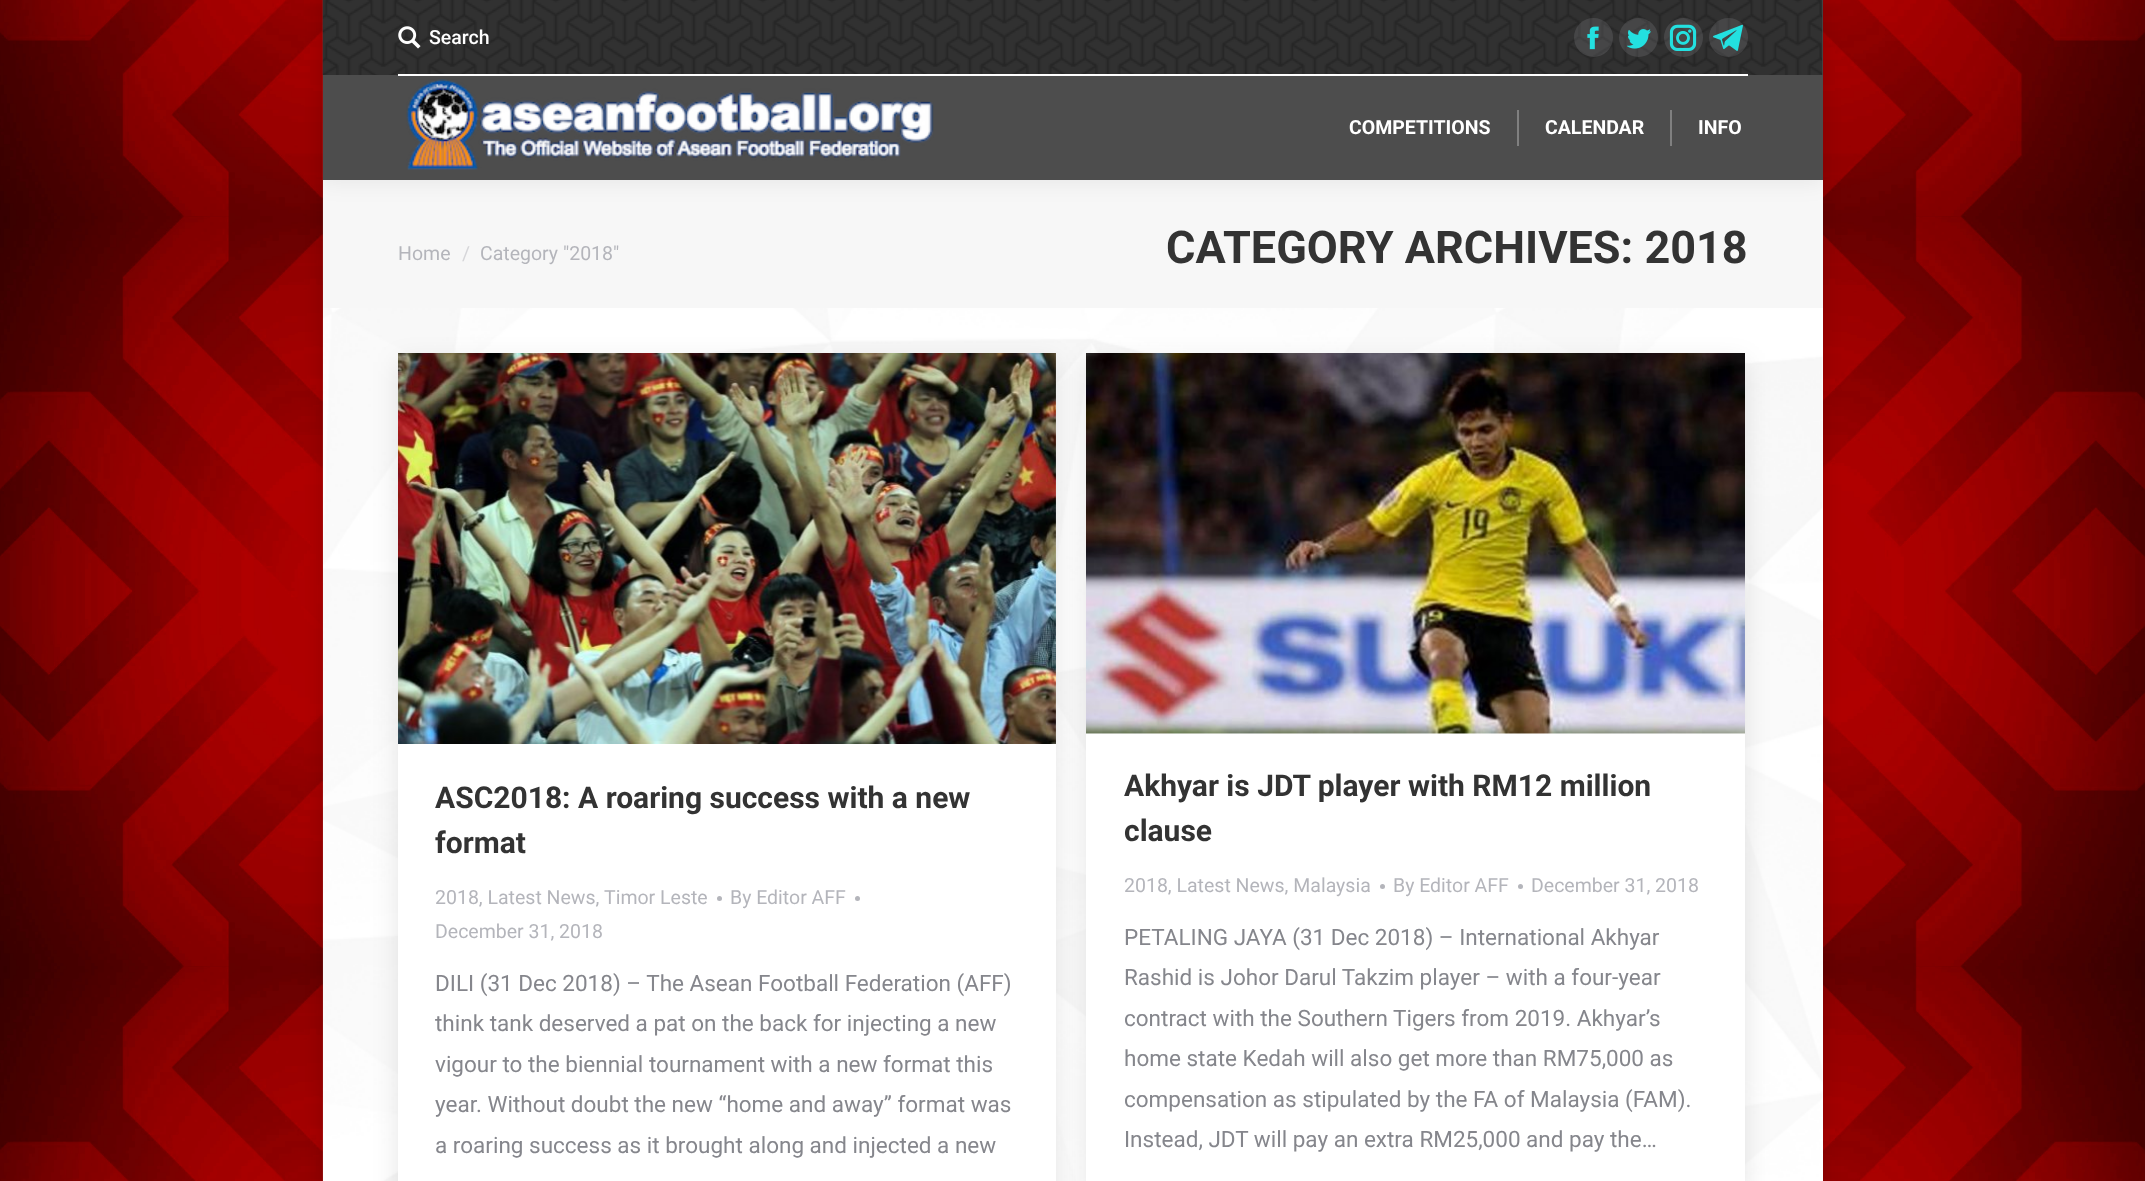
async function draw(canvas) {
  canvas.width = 2145;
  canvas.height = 1181;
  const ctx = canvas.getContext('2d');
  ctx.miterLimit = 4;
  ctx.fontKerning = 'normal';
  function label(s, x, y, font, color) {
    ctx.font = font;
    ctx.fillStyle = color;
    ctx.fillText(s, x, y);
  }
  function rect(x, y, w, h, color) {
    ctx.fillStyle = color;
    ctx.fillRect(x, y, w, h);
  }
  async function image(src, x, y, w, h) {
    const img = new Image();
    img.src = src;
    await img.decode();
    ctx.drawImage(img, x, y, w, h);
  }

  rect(0, 0, 2145, 1181, '#fff');
  await image('assets/img1.png', 0, 0, 2145, 1181);
  ctx.fillStyle = '#00000026';
  ctx.filter = 'blur(9px)';
  ctx.beginPath();
  ctx.rect(323, 0, 1500, 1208);
  ctx.fill();
  ctx.filter = 'none';
  rect(323, 308, 1500, 873, '#fff');
  await image('assets/img2.png', 322, 0, 1501, 1181);
  rect(323, 180, 1500, 128, '#f7f7f7');
  ctx.save();
  ctx.beginPath();
  ctx.rect(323, 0, 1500, 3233);
  ctx.clip();
  ctx.fillStyle = '#00000012';
  ctx.filter = 'blur(11px)';
  ctx.beginPath();
  ctx.rect(321, -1, 1503, 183);
  ctx.fill();
  ctx.filter = 'none';
  ctx.restore();
  rect(323, 75, 1500, 105, '#4d4d4d');
  rect(1822, 0, 1, 75, '#4a4a4a');
  await image('assets/img3.png', 322, 0, 1501, 75);
  await image('assets/img4.png', 398, 26, 23, 23);
  label('Search', 429, 44, '500 19.5px Roboto', '#fff');
  ctx.fillStyle = '#a3a4aa30';
  ctx.beginPath();
  ctx.arc(1593.5, 37.5, 19.5, 0, 2 * Math.PI);
  ctx.fill();
  await image('assets/img5.png', 1587, 26, 12, 24);
  ctx.beginPath();
  ctx.arc(1638.5, 37.5, 19.5, 0, 2 * Math.PI);
  ctx.fill();
  await image('assets/img6.png', 1627, 29, 24, 20);
  ctx.beginPath();
  ctx.arc(1683.5, 37.5, 19.5, 0, 2 * Math.PI);
  ctx.fill();
  await image('assets/img7.png', 1669, 24, 28, 27);
  ctx.beginPath();
  ctx.arc(1728.5, 37.5, 19.5, 0, 2 * Math.PI);
  ctx.fill();
  await image('assets/img8.png', 1713, 24, 30, 27);
  rect(398, 74, 1350, 2, '#fff');
  await image('assets/img9.png', 406, 79, 528, 91);
  label('COMPETITIONS', 1349, 134, 'bold 19.5px Roboto', '#fff');
  rect(1517, 110, 2, 36, '#808080');
  label('CALENDAR', 1545, 134, 'bold 19.5px Roboto', '#fff');
  rect(1670, 110, 2, 36, '#808080');
  label('INFO', 1698, 134, 'bold 19.5px Roboto', '#fff');
  label('Home', 398, 260, '19.5px Roboto', '#b4b5bb');
  label('/', 462, 260, '19.5px Roboto', '#d6d6d9');
  label('Category "2018"', 480, 260, '19.5px Roboto', '#b4b5bb');
  label('CATEGORY ARCHIVES: 2018', 1166, 263, 'bold 45px Roboto', '#333');
  ctx.fillStyle = '#0000001a';
  ctx.filter = 'blur(13.5px)';
  ctx.beginPath();
  ctx.rect(398, 362, 658, 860);
  ctx.fill();
  ctx.filter = 'none';
  rect(398, 353, 658, 828, '#fff');
  await image('assets/img10.png', 398, 353, 658, 391);
  label('ASC2018: A roaring success with a new', 435, 808, 'bold 30px Roboto', '#333');
  label('format', 435, 853, 'bold 30px Roboto', '#333');
  label('2018, Latest News,', 435, 904, '19.5px Roboto', '#b4b5bb');
  label('Timor Leste', 604, 904, '19.5px Roboto', '#b4b5bb');
  ctx.beginPath();
  ctx.arc(719.5, 898.5, 2.5, 0, 2 * Math.PI);
  ctx.fill();
  label('By Editor AFF', 730, 904, '19.5px Roboto', '#b4b5bb');
  ctx.beginPath();
  ctx.arc(857.5, 898.5, 2.5, 0, 2 * Math.PI);
  ctx.fill();
  label('December 31, 2018', 435, 938, '19.5px Roboto', '#b4b5bb');
  label('DILI (31 Dec 2018) – The Asean Football Federation (AFF)', 435, 991, '22.5px Roboto', '#85868c');
  label('think tank deserved a pat on the back for injecting a new', 435, 1031, '22.5px Roboto', '#85868c');
  label('vigour to the biennial tournament with a new format this', 435, 1072, '22.5px Roboto', '#85868c');
  label('year. Without doubt the new “home and away” format was', 435, 1112, '22.5px Roboto', '#85868c');
  label('a roaring success as it brought along and injected a new', 435, 1153, '22.5px Roboto', '#85868c');
  ctx.fillStyle = '#0000001a';
  ctx.filter = 'blur(13.5px)';
  ctx.beginPath();
  ctx.rect(1086, 362, 659, 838);
  ctx.fill();
  ctx.filter = 'none';
  rect(1086, 733, 659, 448, '#fff');
  await image('assets/img11.png', 1086, 353, 659, 381);
  label('Akhyar is JDT player with RM12 million', 1124, 796, 'bold 30px Roboto', '#333');
  label('clause', 1124, 841, 'bold 30px Roboto', '#333');
  label('2018, Latest News, Malaysia', 1124, 892, '19.5px Roboto', '#b4b5bb');
  ctx.beginPath();
  ctx.arc(1382.5, 886.5, 2.5, 0, 2 * Math.PI);
  ctx.fill();
  label('By Editor AFF', 1393, 892, '19.5px Roboto', '#b4b5bb');
  ctx.beginPath();
  ctx.arc(1520.5, 886.5, 2.5, 0, 2 * Math.PI);
  ctx.fill();
  label('December 31, 2018', 1531, 892, '19.5px Roboto', '#b4b5bb');
  label('PETALING JAYA (31 Dec 2018) – International Akhyar', 1124, 945, '22.5px Roboto', '#85868c');
  label('Rashid is Johor Darul Takzim player – with a four-year', 1124, 985, '22.5px Roboto', '#85868c');
  label('contract with the Southern Tigers from 2019. Akhyar’s', 1124, 1026, '22.5px Roboto', '#85868c');
  label('home state Kedah will also get more than RM75,000 as', 1124, 1066, '22.5px Roboto', '#85868c');
  label('compensation as stipulated by the FA of Malaysia (FAM).', 1124, 1107, '22.5px Roboto', '#85868c');
  label('Instead, JDT will pay an extra RM25,000 and pay the…', 1124, 1147, '22.5px Roboto', '#85868c');
}

draw(document.querySelector('canvas'));
